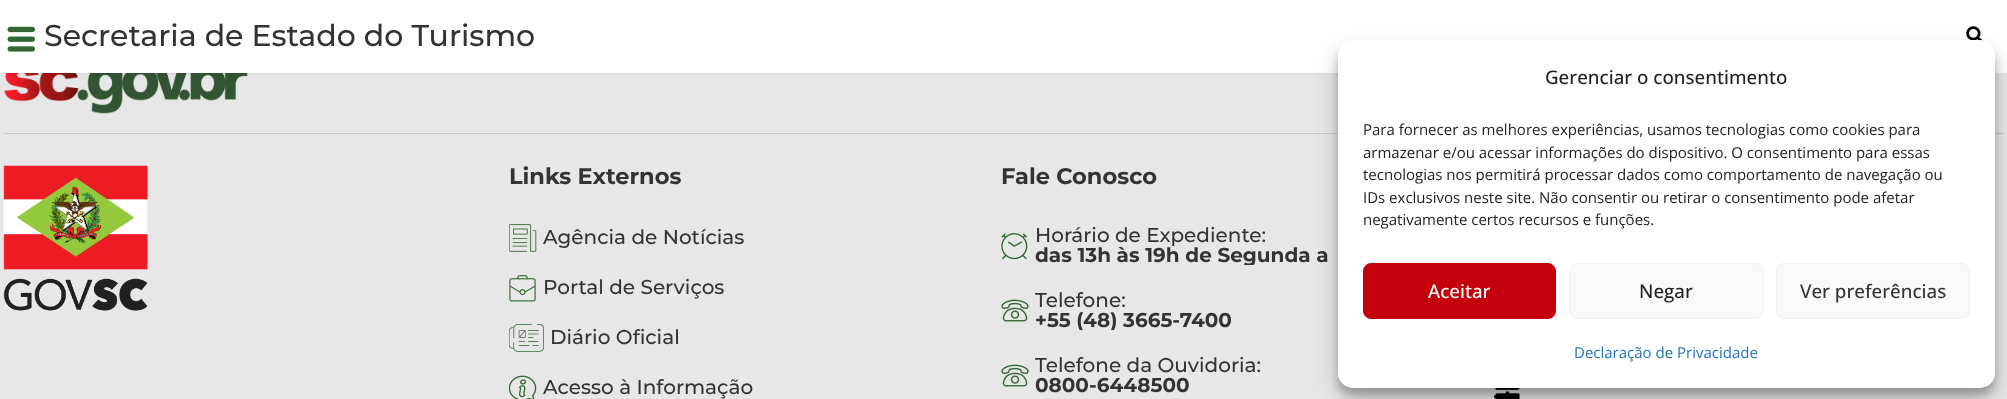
async function draw(canvas) {
  canvas.width = 2007;
  canvas.height = 399;
  const ctx = canvas.getContext('2d');
  ctx.miterLimit = 4;
  ctx.fontKerning = 'normal';
  function label(s, x, y, font, color) {
    ctx.font = font;
    ctx.fillStyle = color;
    ctx.fillText(s, x, y);
  }
  function rect(x, y, w, h, color) {
    ctx.fillStyle = color;
    ctx.fillRect(x, y, w, h);
  }
  function roundedRect(x, y, w, h, r, color) {
    ctx.fillStyle = color;
    ctx.beginPath();
    ctx.roundRect(x, y, w, h, r);
    ctx.fill();
  }
  async function image(src, x, y, w, h) {
    const img = new Image();
    img.src = src;
    await img.decode();
    ctx.drawImage(img, x, y, w, h);
  }

  rect(0, 0, 2007, 399, '#e7e7e7');
  await image('assets/img3.png', 3, 73, 245, 41);
  ctx.fillStyle = '#00000080';
  ctx.filter = 'blur(6px)';
  ctx.beginPath();
  ctx.rect(19, 31, 1970, 35);
  ctx.fill();
  ctx.filter = 'none';
  rect(0, 0, 2007, 73, '#fff');
  await image('assets/img1.png', 7, 26, 28, 26);
  label('Secretaria de Estado do Turismo', 44, 46, '500 30px Montserrat', '#333');
  await image('assets/img2.png', 1966, 26, 17, 15);
  rect(4, 133, 2000, 1, '#c9c9c9');
  await image('assets/img4.png', 3, 165, 145, 146);
  label('Links Externos', 509, 184, 'bold 22.5px Montserrat', '#333');
  await image('assets/img5.png', 509, 224, 28, 28);
  label('Agência de Notícias', 543, 244, '500 20px Montserrat', '#333');
  await image('assets/img6.png', 509, 275, 27, 27);
  label('Portal de Serviços', 543, 294, '500 20px Montserrat', '#333');
  await image('assets/img7.png', 509, 324, 35, 28);
  label('Diário Oficial', 550, 344, '500 20px Montserrat', '#333');
  await image('assets/img8.png', 509, 375, 28, 24);
  label('Acesso à Informação', 543, 394, '500 20px Montserrat', '#333');
  label('Fale Conosco', 1001, 184, 'bold 22.5px Montserrat', '#333');
  await image('assets/img9.png', 1001, 233, 27, 27);
  label('Horário de Expediente:', 1035, 242, '500 20px Montserrat', '#333');
  ctx.save();
  ctx.beginPath();
  ctx.rect(1001, 225, 455, 40);
  ctx.clip();
  label('das 13h às 19h de Segunda a', 1035, 262, 'bold 20px Montserrat', '#333');
  ctx.restore();
  await image('assets/img10.png', 1001, 299, 28, 23);
  label('Telefone:', 1035, 307, '500 20px Montserrat', '#333');
  ctx.save();
  ctx.beginPath();
  ctx.rect(1001, 290, 455, 40);
  ctx.clip();
  label('+55 (48) 3665-7400', 1035, 327, 'bold 20px Montserrat', '#333');
  ctx.restore();
  await image('assets/img10.png', 1001, 364, 28, 23);
  label('Telefone da Ouvidoria:', 1035, 372, '500 20px Montserrat', '#333');
  label('0800-6448500', 1035, 392, 'bold 20px Montserrat', '#333');
  await image('assets/img11.png', 1494, 388, 26, 11);
  ctx.fillStyle = '#0000003b';
  ctx.filter = 'blur(4px)';
  ctx.beginPath();
  ctx.roundRect(1338, 48, 657, 347, 15);
  ctx.fill();
  ctx.filter = 'none';
  ctx.fillStyle = '#00000030';
  ctx.filter = 'blur(12.5px)';
  ctx.beginPath();
  ctx.roundRect(1338, 53, 657, 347, 15);
  ctx.fill();
  ctx.filter = 'none';
  roundedRect(1338, 40, 657, 348, 15, '#fff');
  label('Gerenciar o consentimento', 1545, 84, '500 18.75px Open Sans', '#222');
  label('Para fornecer as melhores experiências, usamos tecnologias como cookies para', 1363, 135, '15px Open Sans', '#222');
  label('armazenar e/ou acessar informações do dispositivo. O consentimento para essas', 1363, 158, '15px Open Sans', '#222');
  label('tecnologias nos permitirá processar dados como comportamento de navegação ou', 1363, 180, '15px Open Sans', '#222');
  label('IDs exclusivos neste site. Não consentir ou retirar o consentimento pode afetar', 1363, 203, '15px Open Sans', '#222');
  label('negativamente certos recursos e funções.', 1363, 225, '15px Open Sans', '#222');
  ctx.fillStyle = '#c4000b';
  ctx.beginPath();
  ctx.roundRect(1363.5, 263.5, 192, 55, 7.5);
  ctx.fill();
  ctx.strokeStyle = '#c4000b';
  ctx.stroke();
  label('Aceitar', 1428, 298, '500 18.75px Open Sans', '#fff');
  ctx.fillStyle = '#f9f9f9';
  ctx.beginPath();
  ctx.roundRect(1569.5, 263.5, 194, 55, 7.5);
  ctx.fill();
  ctx.strokeStyle = '#f2f2f2';
  ctx.stroke();
  label('Negar', 1639, 298, '500 18.75px Open Sans', '#222');
  ctx.fillStyle = '#f9f9f9';
  ctx.beginPath();
  ctx.roundRect(1776.5, 263.5, 193, 55, 7.5);
  ctx.fill();
  ctx.stroke();
  label('Ver preferências', 1800, 298, '500 18.75px Open Sans', '#333');
  label('Declaração de Privacidade', 1574, 358, '15px Open Sans', '#1e73be');
}

draw(document.querySelector('canvas'));
